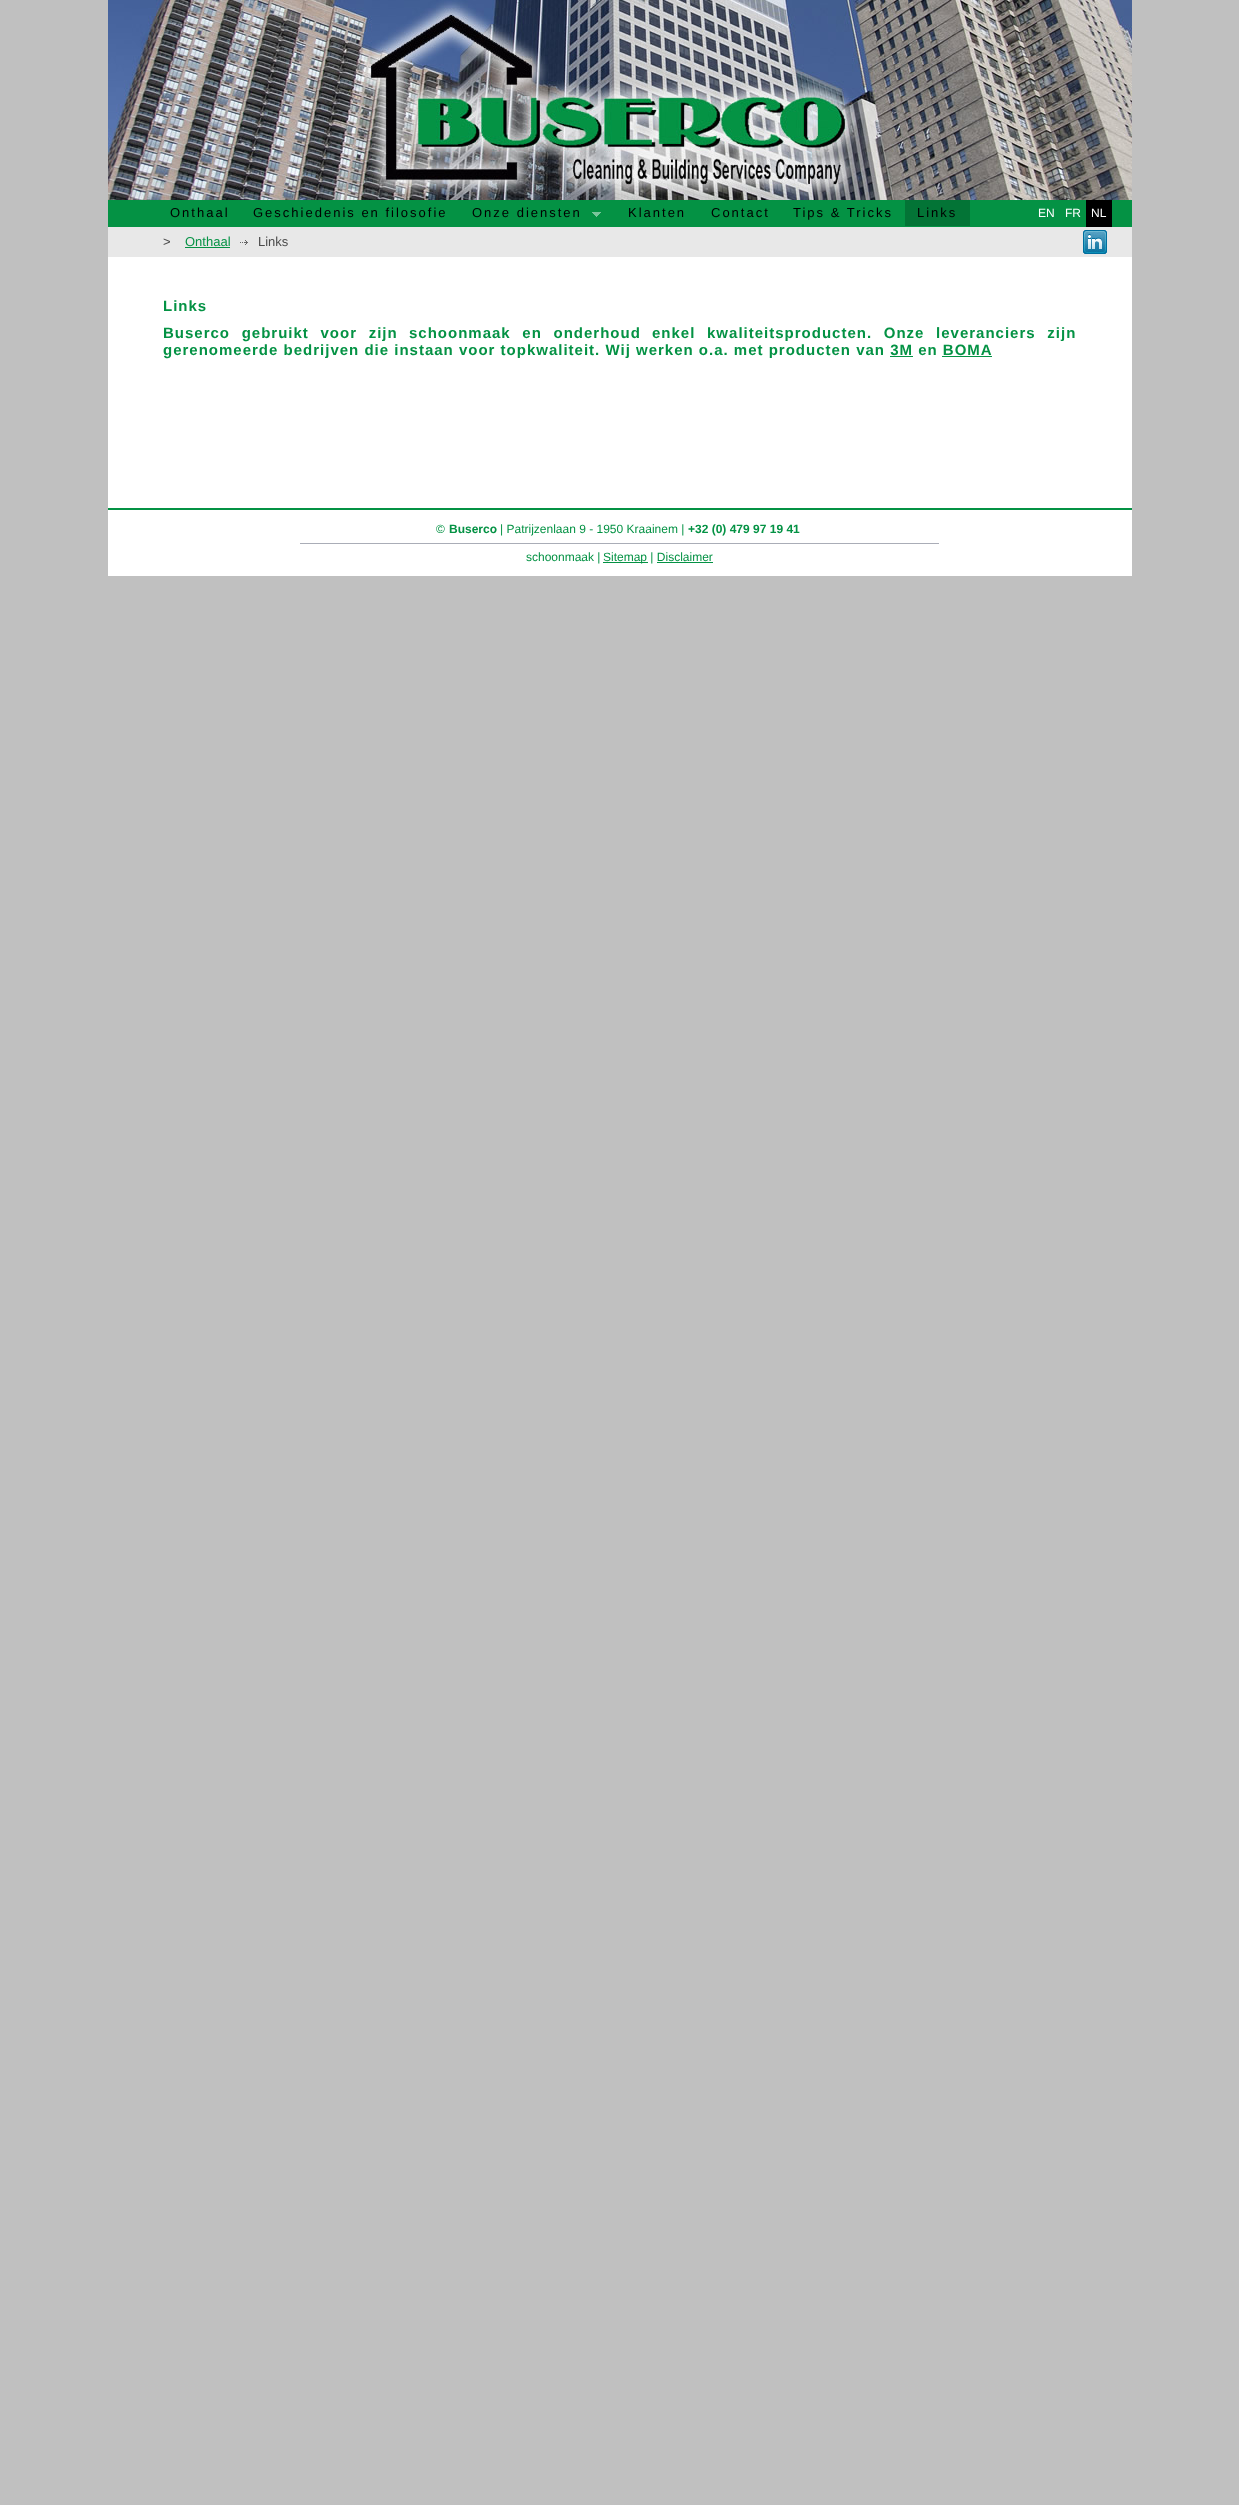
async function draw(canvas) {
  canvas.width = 1239;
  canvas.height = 2505;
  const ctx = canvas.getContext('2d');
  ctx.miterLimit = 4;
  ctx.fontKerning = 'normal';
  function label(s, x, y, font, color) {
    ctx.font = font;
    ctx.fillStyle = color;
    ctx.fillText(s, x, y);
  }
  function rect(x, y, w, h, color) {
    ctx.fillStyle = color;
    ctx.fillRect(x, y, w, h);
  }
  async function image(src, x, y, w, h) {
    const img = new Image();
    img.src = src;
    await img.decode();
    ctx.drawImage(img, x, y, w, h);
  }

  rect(0, 0, 1239, 2505, '#c0c0c0');
  rect(108, 257, 1024, 319, '#fff');
  await image('assets/img1.png', 108, 0, 1024, 200);
  rect(108, 200, 1024, 27, '#049244');
  ctx.letterSpacing = '2px';
  label('Onthaal', 170, 217, '13px Liberation Sans', '#000');
  label('Geschiedenis en filosofie', 253, 217, '13px Liberation Sans', '#000');
  label('Onze diensten', 472, 217, '13px Liberation Sans', '#000');
  await image('assets/img2.png', 592, 212, 9, 5);
  label('Klanten', 628, 217, '13px Liberation Sans', '#000');
  label('Contact', 711, 217, '13px Liberation Sans', '#000');
  label('Tips & Tricks', 793, 217, '13px Liberation Sans', '#000');
  rect(905, 200, 65, 26, '#037436');
  label('Links', 917, 217, '13px Liberation Sans', '#000');
  ctx.letterSpacing = '0px';
  label('EN', 1038, 217, '12px Liberation Sans', '#fff');
  label('FR', 1065, 217, '12px Liberation Sans', '#fff');
  rect(1086, 200, 26, 27, '#000');
  label('NL', 1091, 217, '12px Liberation Sans', '#fff');
  rect(108, 227, 1024, 30, '#e8e8e8');
  label('>', 163, 246, '13px Liberation Sans', '#4b4b4b');
  label('Onthaal', 185, 246, '13px Liberation Sans', '#049244');
  rect(185, 247, 45, 1, '#049244');
  await image('assets/img3.png', 240, 240, 8, 5);
  label('Links', 258, 246, '13px Liberation Sans', '#4b4b4b');
  await image('assets/img4.png', 1083, 230, 24, 24);
  ctx.letterSpacing = '1px';
  label('Links', 163, 311, 'bold 15px Liberation Sans', '#049244');
  ctx.wordSpacing = '6.5px';
  label('Buserco gebruikt voor zijn', 163, 338, 'bold 15px Liberation Sans', '#049244');
  label('schoonmaak en onderhoud', 409, 338, 'bold 15px Liberation Sans', '#049244');
  label('enkel kwaliteitsproducten. Onze leveranciers zijn', 652, 338, 'bold 15px Liberation Sans', '#049244');
  ctx.wordSpacing = '0px';
  label('gerenomeerde bedrijven die instaan voor topkwaliteit. Wij werken o.a. met producten van 3M en BOMA', 163, 355, 'bold 15px Liberation Sans', '#049244');
  rect(890, 356, 23, 1, '#049244');
  rect(942, 356, 50, 1, '#049244');
  rect(108, 508, 1024, 2, '#049244');
  ctx.letterSpacing = '0px';
  label('©', 436, 533, '12px Liberation Sans', '#049244');
  label('Buserco', 449, 533, 'bold 12px Liberation Sans', '#049244');
  label('| Patrijzenlaan 9 - 1950 Kraainem |', 500, 533, '12px Liberation Sans', '#049244');
  label('+32 (0) 479 97 19 41', 688, 533, 'bold 12px Liberation Sans', '#049244');
  rect(300, 543, 639, 1, '#aaadb7');
  label('schoonmaak |', 526, 561, '12px Liberation Sans', '#049244');
  rect(603, 562, 45, 1, '#049244');
  label('Sitemap | Disclaimer', 603, 561, '12px Liberation Sans', '#049244');
  rect(657, 562, 56, 1, '#049244');
}

draw(document.querySelector('canvas'));
